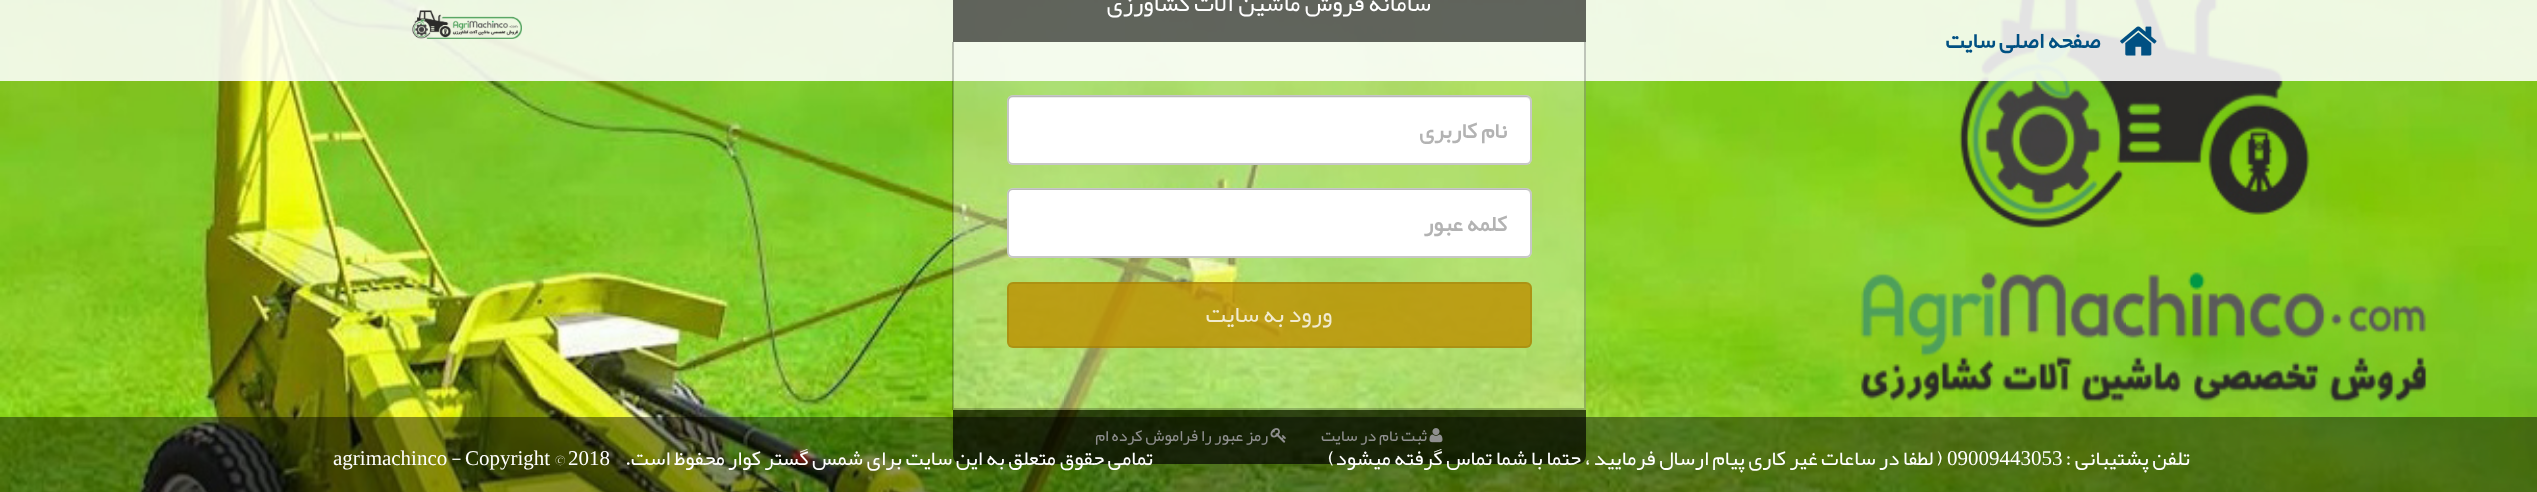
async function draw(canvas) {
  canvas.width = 2537;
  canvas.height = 492;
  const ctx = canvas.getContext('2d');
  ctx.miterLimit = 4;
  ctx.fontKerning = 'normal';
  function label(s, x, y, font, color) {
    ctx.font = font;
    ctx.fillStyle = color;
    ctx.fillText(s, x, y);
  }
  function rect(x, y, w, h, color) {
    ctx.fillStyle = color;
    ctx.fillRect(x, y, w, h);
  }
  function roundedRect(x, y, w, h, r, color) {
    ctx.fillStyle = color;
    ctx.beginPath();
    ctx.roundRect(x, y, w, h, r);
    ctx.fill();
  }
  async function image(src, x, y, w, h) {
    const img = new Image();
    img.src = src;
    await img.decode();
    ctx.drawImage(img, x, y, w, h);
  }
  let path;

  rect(0, 0, 2537, 492, '#fff');
  await image('assets/img1.png', 0, 0, 2537, 492);
  rect(0, 0, 2537, 81, '#ffffffde');
  await image('assets/img2.png', 412, 10, 110, 29);
  await image('assets/img3.png', 2120, 26, 37, 30);
  ctx.direction = 'rtl';
  label('صفحه اصلی سایت', 2100, 48, 'bold 22.5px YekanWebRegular', '#005082');
  rect(953, 0, 633, 42, '#00000099');
  label('سامانه فروش ماشین آلات کشاورزی', 1431, 11, '24px YekanWebRegular', '#fff');
  rect(953, 42, 633, 368, '#ffffff54');
  ctx.fillStyle = '#00000038';
  path = new Path2D('M1586 42V410L1584 408V42Z');
  ctx.fill(path);
  path = new Path2D('M1586 410H952L954 408H1584Z');
  ctx.fill(path);
  path = new Path2D('M952 410V42H954V408Z');
  ctx.fill(path);
  roundedRect(1007, 95, 525, 70, 6, '#fff');
  ctx.fillStyle = '#ececec';
  path = new Path2D('M1012 98H1526C1528 98 1530 100 1530 102V101C1530 98 1528 96 1525 96H1013C1010 96 1008 98 1008 101V102C1008 100 1010 98 1012 98Z');
  ctx.fill(path);
  ctx.beginPath();
  ctx.roundRect(1008, 96, 523, 68, 5);
  ctx.strokeStyle = '#00000038';
  ctx.lineWidth = 2;
  ctx.stroke();
  label('نام کاربری', 1507, 138, 'bold 22.5px YekanWebRegular', '#b3b3b3');
  roundedRect(1007, 188, 525, 70, 6, '#fff');
  ctx.fillStyle = '#ececec';
  path = new Path2D('M1012 190H1526C1528 190 1530 193 1530 195V194C1530 191 1528 189 1525 189H1013C1010 189 1008 191 1008 194V195C1008 193 1010 190 1012 190Z');
  ctx.fill(path);
  ctx.beginPath();
  ctx.roundRect(1008, 189, 523, 68, 5);
  ctx.stroke();
  label('کلمه عبور', 1507, 231, 'bold 22.5px YekanWebRegular', '#b3b3b3');
  roundedRect(1007, 282, 525, 66, 6, '#bd8e00cc');
  ctx.beginPath();
  ctx.roundRect(1008, 283, 523, 64, 5);
  ctx.strokeStyle = '#00000014';
  ctx.stroke();
  label('ورود به سایت', 1332, 322, '24px YekanWebRegular', '#f1ebd0');
  ctx.fillStyle = '#000000b0';
  ctx.beginPath();
  ctx.roundRect(953, 410, 633, 54, [0, 0, 8, 8]);
  ctx.fill();
  await image('assets/img4.png', 1429, 428, 14, 15);
  label('ثبت نام در سایت', 1427, 441, '16.5px YekanWebRegular', '#fff');
  await image('assets/img5.png', 1270, 428, 16, 15);
  label('رمز عبور را فراموش کرده ام', 1268, 441, '16.5px YekanWebRegular', '#fff');
  rect(0, 417, 2537, 75, '#00000070');
  label('تلفن پشتیبانی :', 2190, 465, '21px YekanWebRegular', '#fff');
  ctx.direction = 'ltr';
  label('09009443053', 1947, 465, '21px Liberation Serif', '#fff');
  ctx.direction = 'rtl';
  label('( لطفا در ساعات غیر کاری پیام ارسال فرمایید ، حتما با شما تماس گرفته میشود)', 1943, 465, '21px YekanWebRegular', '#fff');
  label('تمامی حقوق متعلق به این سایت برای', 1153, 465, '21px YekanWebRegular', '#fff');
  label('شمس گستر کوار محفوظ است.', 863, 465, '21px YekanWebRegular', '#fff');
  ctx.direction = 'ltr';
  label('2018', 568, 465, '21px Liberation Serif', '#fff');
  label('©', 554, 465, '21px YekanWebRegular', '#fff');
  label('Copyright', 465, 465, '21px Liberation Serif', '#fff');
  label('-', 451, 465, '21px YekanWebRegular', '#fff');
  label('agrimachinco', 333, 465, '21px Liberation Serif', '#fff');
}

draw(document.querySelector('canvas'));
